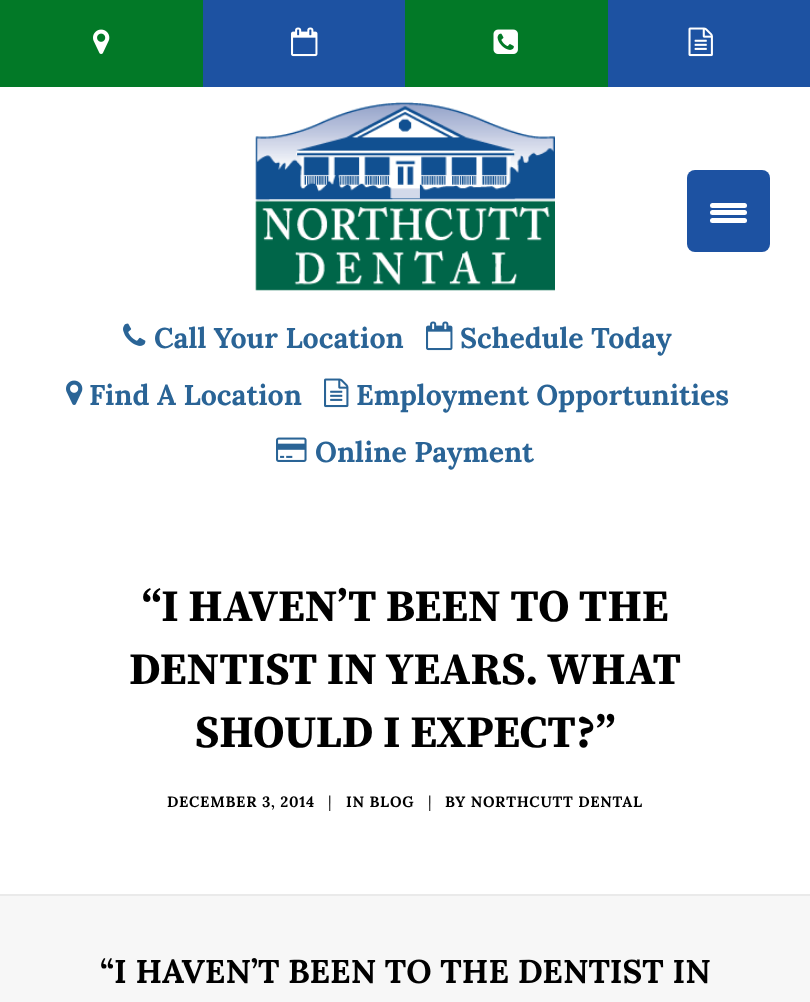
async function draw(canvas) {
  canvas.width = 810;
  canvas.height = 1002;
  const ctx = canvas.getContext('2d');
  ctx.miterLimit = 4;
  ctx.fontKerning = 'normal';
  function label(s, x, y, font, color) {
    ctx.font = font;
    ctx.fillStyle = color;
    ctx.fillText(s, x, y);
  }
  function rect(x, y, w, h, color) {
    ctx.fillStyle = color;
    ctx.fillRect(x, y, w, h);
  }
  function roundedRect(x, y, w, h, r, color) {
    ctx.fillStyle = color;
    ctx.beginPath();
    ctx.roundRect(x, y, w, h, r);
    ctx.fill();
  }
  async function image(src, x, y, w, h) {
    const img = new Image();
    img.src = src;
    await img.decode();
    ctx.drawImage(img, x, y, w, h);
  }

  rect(0, 0, 810, 1002, '#fff');
  rect(0, 0, 203, 87, '#027927');
  await image('assets/img1.png', 93, 29, 17, 25);
  rect(203, 0, 607, 87, '#1d52a2');
  await image('assets/img2.png', 688, 27, 25, 30);
  await image('assets/img3.png', 291, 27, 27, 30);
  rect(405, 0, 203, 87, '#027927');
  await image('assets/img4.png', 493, 29, 25, 25);
  roundedRect(687, 170, 83, 82, 8, '#1d52a2');
  roundedRect(710, 210, 37, 5, 2.5, '#fff');
  roundedRect(710, 203, 37, 5, 2.5, '#fff');
  roundedRect(710, 218, 37, 5, 2.5, '#fff');
  await image('assets/img5.png', 255, 102, 300, 189);
  await image('assets/img6.png', 123, 323, 23, 23);
  label('Call Your Location', 154, 348, 'bold 28.5px Lora', '#2a6496');
  await image('assets/img7.png', 426, 321, 27, 30);
  label('Schedule Today', 460, 348, 'bold 28.5px Lora', '#2a6496');
  await image('assets/img8.png', 66, 380, 17, 25);
  label('Find A Location', 89, 405, 'bold 28.5px Lora', '#2a6496');
  await image('assets/img9.png', 324, 378, 25, 30);
  label('Employment Opportunities', 356, 405, 'bold 28.5px Lora', '#2a6496');
  await image('assets/img10.png', 276, 437, 31, 25);
  label('Online Payment', 315, 462, 'bold 28.5px Lora', '#2a6496');
  label('“I HAVEN’T BEEN TO THE', 142, 621, 'bold 45px Source Serif Pro', '#000');
  label('DENTIST IN YEARS. WHAT', 129, 684, 'bold 45px Source Serif Pro', '#000');
  label('SHOULD I EXPECT?”', 195, 747, 'bold 45px Source Serif Pro', '#000');
  ctx.letterSpacing = '0.75px';
  label('DECEMBER 3, 2014', 167, 807, 'bold 15px Lora', '#000');
  label('|', 328, 807, '15px Lora', '#000');
  label('IN BLOG', 346, 807, 'bold 15px Lora', '#000');
  label('|', 428, 807, '15px Lora', '#000');
  label('BY NORTHCUTT DENTAL', 445, 807, 'bold 15px Lora', '#000');
  rect(0, 896, 810, 106, '#f7f7f7');
  rect(0, 894, 810, 2, '#eaeaea');
  ctx.letterSpacing = '0px';
  label('“I HAVEN’T BEEN TO THE DENTIST IN', 100, 983, 'bold 33px Lora', '#000');
}

draw(document.querySelector('canvas'));
